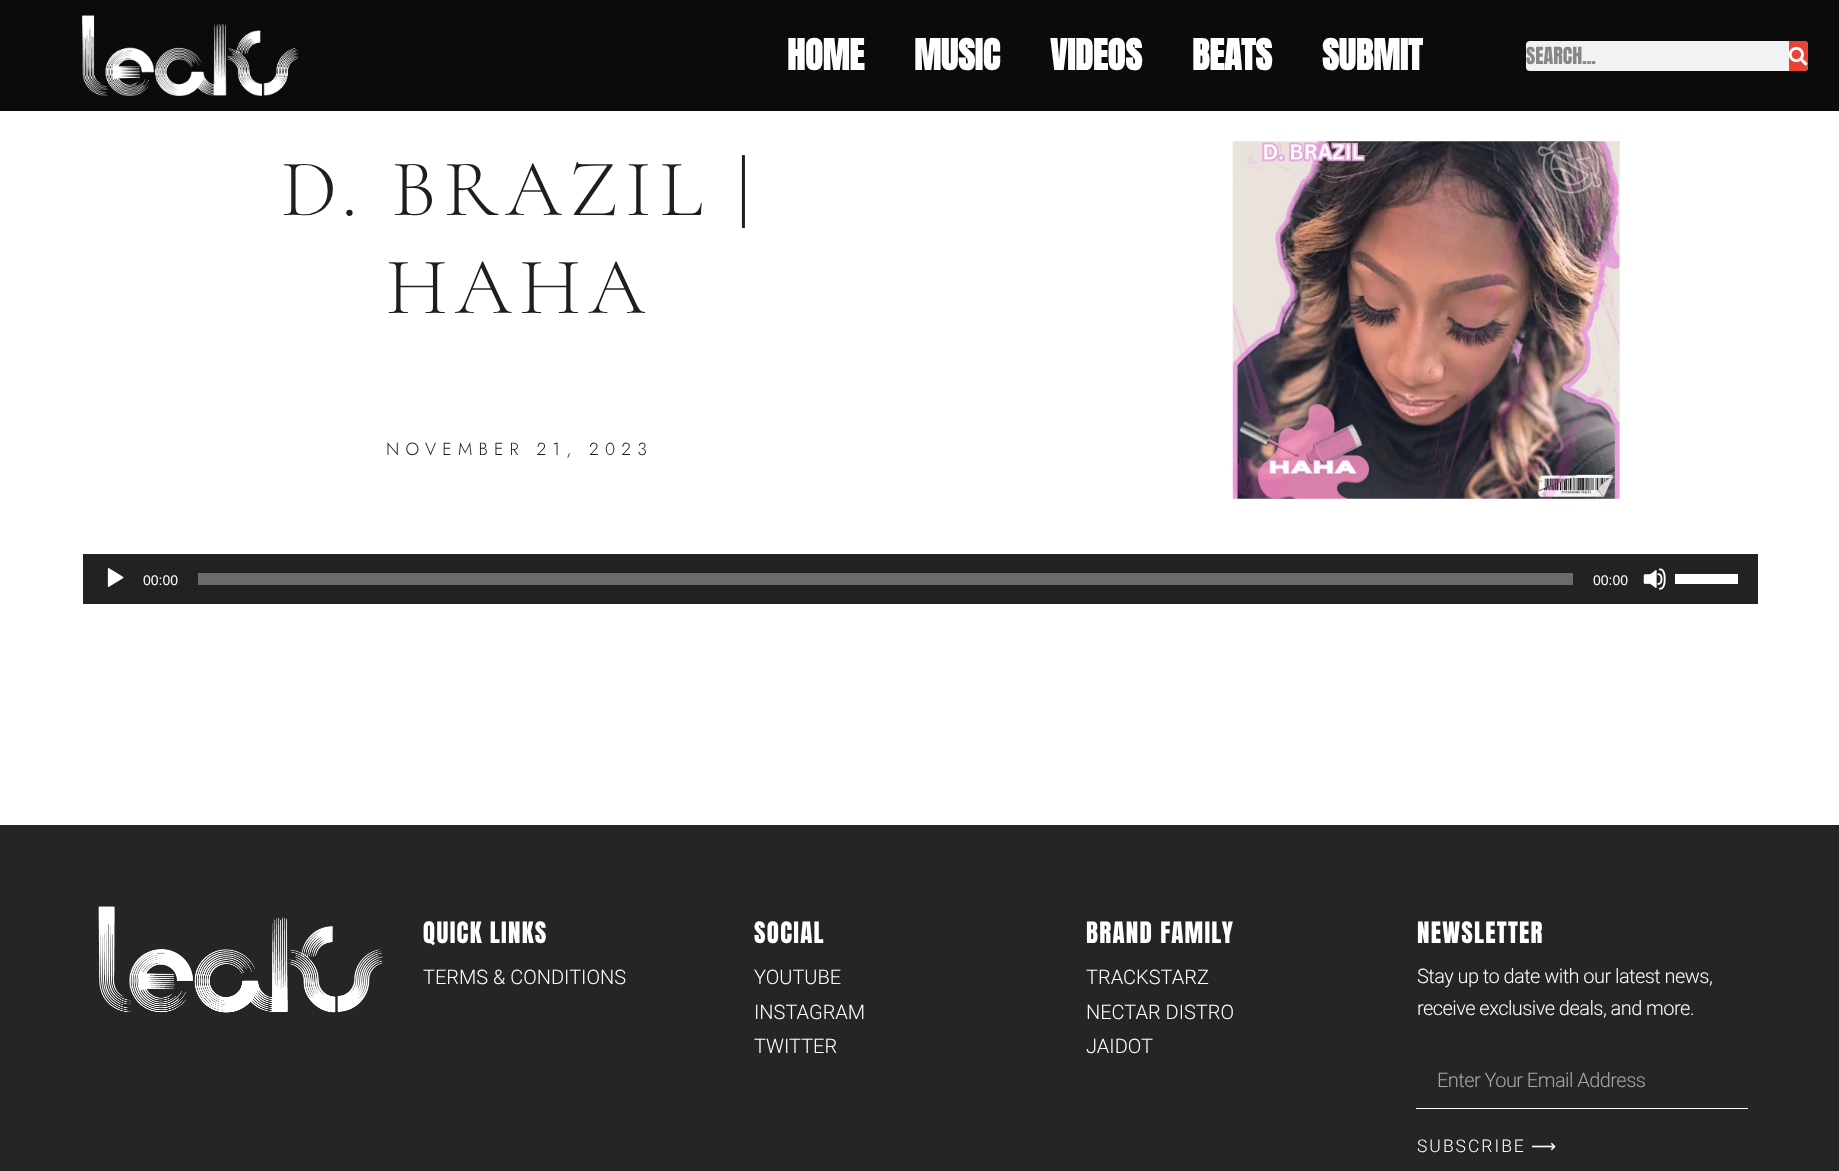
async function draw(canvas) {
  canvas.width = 1839;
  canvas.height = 1171;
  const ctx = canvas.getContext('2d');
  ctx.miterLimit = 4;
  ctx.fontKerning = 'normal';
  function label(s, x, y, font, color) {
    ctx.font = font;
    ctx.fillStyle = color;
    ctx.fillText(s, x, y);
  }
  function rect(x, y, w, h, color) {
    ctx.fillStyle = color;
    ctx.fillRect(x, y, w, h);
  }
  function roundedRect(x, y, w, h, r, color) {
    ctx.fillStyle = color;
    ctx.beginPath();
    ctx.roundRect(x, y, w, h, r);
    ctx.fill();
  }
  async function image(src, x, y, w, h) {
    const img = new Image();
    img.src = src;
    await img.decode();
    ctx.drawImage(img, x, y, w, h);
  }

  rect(0, 0, 1839, 1171, '#fff');
  rect(0, 0, 1839, 111, '#0b0b0b');
  await image('assets/img1.png', 82, 15, 217, 81);
  label('HOME', 787, 70, 'bold 36px Anton', '#fff');
  label('MUSIC', 914, 70, 'bold 36px Anton', '#fff');
  label('VIDEOS', 1050, 70, 'bold 36px Anton', '#fff');
  label('BEATS', 1192, 70, 'bold 36px Anton', '#fff');
  label('SUBMIT', 1322, 70, 'bold 36px Anton', '#fff');
  roundedRect(1526, 41, 282, 30, 4, '#f1f2f3');
  label('SEARCH...', 1526, 64, '20px Anton', '#868787');
  ctx.fillStyle = '#ea4335';
  ctx.beginPath();
  ctx.roundRect(1789, 41, 19, 30, [0, 4, 4, 0]);
  ctx.fill();
  await image('assets/img2.png', 1789, 46, 19, 20);
  ctx.letterSpacing = '7.5px';
  label('D. BRAZIL |', 281, 215, '300 81.25px Cormorant Garamond', '#1e1e1e');
  label('HAHA', 386, 313, '300 81.25px Cormorant Garamond', '#1e1e1e');
  ctx.letterSpacing = '6.25px';
  label('NOVEMBER 21, 2023', 386, 455, '300 17.5px Jost', '#1e1e1e');
  await image('assets/img3.png', 1232, 141, 388, 358);
  rect(83, 554, 1675, 50, '#222');
  await image('assets/img4.png', 107, 568, 17, 19);
  ctx.letterSpacing = '0px';
  label('00:00', 143, 585, '14px Liberation Sans', '#fff');
  rect(198, 573, 1375, 12, '#6b6b6b');
  label('00:00', 1593, 585, '14px Liberation Sans', '#fff');
  await image('assets/img5.png', 1643, 568, 23, 22);
  rect(1675, 574, 63, 10, '#fff');
  rect(0, 825, 1839, 346, '#252525');
  await image('assets/img6.png', 98, 906, 286, 107);
  ctx.letterSpacing = '1.25px';
  label('QUICK LINKS', 423, 943, '25px Anton', '#fff');
  ctx.letterSpacing = '0px';
  label('TERMS & CONDITIONS', 423, 984, '300 20px Roboto', '#fff');
  ctx.letterSpacing = '1.25px';
  label('SOCIAL', 754, 943, '25px Anton', '#fff');
  ctx.letterSpacing = '0px';
  label('YOUTUBE', 754, 984, '300 20px Roboto', '#fff');
  label('INSTAGRAM', 754, 1019, '300 20px Roboto', '#fff');
  label('TWITTER', 754, 1053, '300 20px Roboto', '#fff');
  ctx.letterSpacing = '1.25px';
  label('BRAND FAMILY', 1086, 943, '25px Anton', '#fff');
  ctx.letterSpacing = '0px';
  label('TRACKSTARZ', 1086, 984, '300 20px Roboto', '#fff');
  label('NECTAR DISTRO', 1086, 1019, '300 20px Roboto', '#fff');
  label('JAIDOT', 1086, 1053, '300 20px Roboto', '#fff');
  ctx.letterSpacing = '1.25px';
  label('NEWSLETTER', 1417, 943, '25px Anton', '#fff');
  ctx.letterSpacing = '-0.55px';
  label('Stay up to date with our latest news,', 1417, 983, '300 20px Roboto', '#fff');
  label('receive exclusive deals, and more.', 1417, 1015, '300 20px Roboto', '#fff');
  rect(1416, 1108, 332, 1, '#fff');
  label('Enter Your Email Address', 1437, 1087, '300 20px Roboto', '#a8a8a8');
  ctx.letterSpacing = '2px';
  label('SUBSCRIBE', 1417, 1152, '300 17.5px Roboto', '#fff');
  label('⟶', 1531, 1152, '17.5px DejaVu Sans', '#fff');
}

draw(document.querySelector('canvas'));
